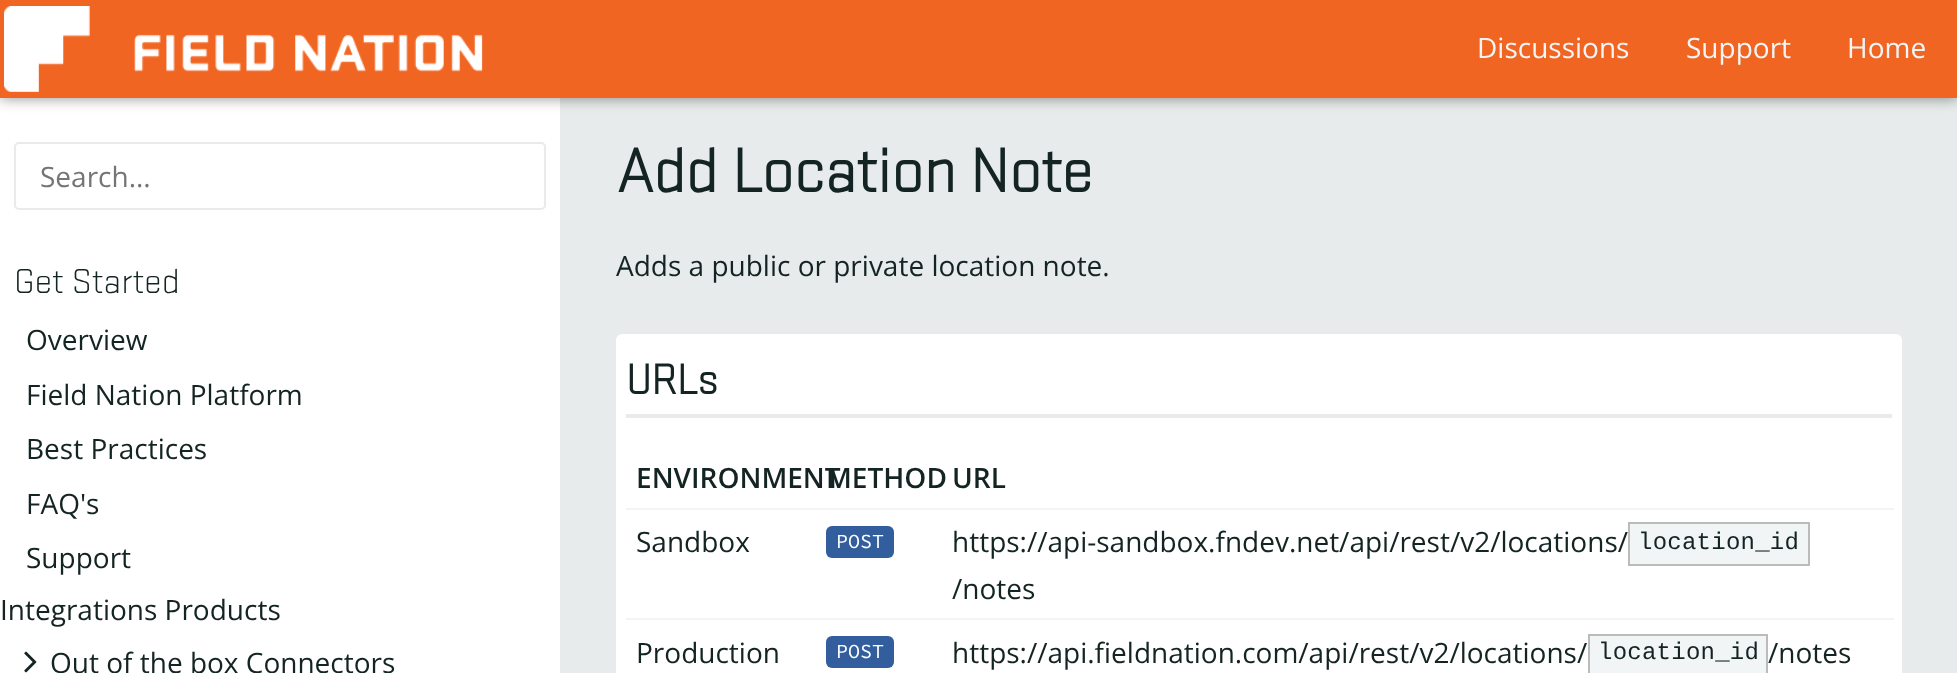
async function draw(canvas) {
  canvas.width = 1957;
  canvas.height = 673;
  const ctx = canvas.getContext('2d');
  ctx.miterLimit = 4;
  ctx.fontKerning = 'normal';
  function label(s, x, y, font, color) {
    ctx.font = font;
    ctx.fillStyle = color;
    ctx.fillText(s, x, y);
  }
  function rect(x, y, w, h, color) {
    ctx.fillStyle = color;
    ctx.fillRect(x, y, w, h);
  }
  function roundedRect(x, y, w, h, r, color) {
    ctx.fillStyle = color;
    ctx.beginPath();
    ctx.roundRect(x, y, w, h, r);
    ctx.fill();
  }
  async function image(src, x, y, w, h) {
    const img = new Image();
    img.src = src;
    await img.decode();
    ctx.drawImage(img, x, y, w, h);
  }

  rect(0, 0, 1957, 673, '#e8ebeb');
  rect(0, 98, 560, 575, '#fff');
  ctx.fillStyle = '#00000073';
  ctx.filter = 'blur(7px)';
  ctx.beginPath();
  ctx.rect(0, 0, 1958, 98);
  ctx.fill();
  ctx.filter = 'none';
  rect(0, 0, 1957, 98, '#f16522');
  await image('assets/img1.png', 4, 6, 479, 86);
  label('Discussions', 1477, 58, '28px Open Sans', '#f2f5f5');
  label('Support', 1686, 58, '28px Open Sans', '#f2f5f5');
  label('Home', 1847, 58, '28px Open Sans', '#f2f5f5');
  ctx.beginPath();
  ctx.roundRect(15, 143, 530, 66, 4);
  ctx.strokeStyle = '#e8ebeb';
  ctx.lineWidth = 2;
  ctx.stroke();
  label('Search...', 40, 187, '28px Open Sans', '#757575');
  label('Get Started', 14, 293, '300 36px "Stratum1"', '#142423');
  label('Overview', 26, 350, '28px Open Sans', '#142423');
  label('Field Nation Platform', 26, 405, '28px Open Sans', '#142423');
  label('Best Practices', 26, 459, '28px Open Sans', '#142423');
  label('FAQ\'s', 26, 514, '28px Open Sans', '#142423');
  label('Support', 26, 568, '28px Open Sans', '#142423');
  label('Integrations Products', 0, 620, '28px Open Sans', '#142423');
  await image('assets/img2.png', 24, 651, 13, 22);
  label('Out of the box Connectors', 50, 673, '28px Open Sans', '#142423');
  label('Add Location Note', 616, 192, 'bold 64px "Stratum1"', '#142423');
  label('Adds a public or private location note.', 616, 276, '28px Open Sans', '#142423');
  roundedRect(616, 334, 1286, 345, 6, '#fff');
  rect(626, 414, 1266, 4, '#e8ebeb');
  label('URLs', 626, 394, 'bold 44px "Stratum1"', '#142423');
  rect(626, 508, 1268, 2, '#f2f5f5');
  label('ENVIRONMENT', 636, 488, '600 28px Open Sans', '#142423');
  label('METHOD', 826, 488, '600 28px Open Sans', '#142423');
  label('URL', 952, 488, '600 28px Open Sans', '#142423');
  label('Sandbox', 636, 552, '28px Open Sans', '#142423');
  roundedRect(826, 526, 68, 32, 6, '#335e9e');
  label('POST', 836, 548, '200 20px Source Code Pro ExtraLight', '#fff');
  label('https://api-sandbox.fndev.net/api/rest/v2/locations/', 952, 552, '28px Open Sans', '#142423');
  ctx.fillStyle = '#f2f5f5';
  ctx.beginPath();
  ctx.rect(1629, 523, 180, 42);
  ctx.fill();
  ctx.strokeStyle = '#bbb';
  ctx.stroke();
  ctx.letterSpacing = '0.25px';
  label('location_id', 1638, 549, '24px Liberation Mono', '#142423');
  ctx.letterSpacing = '0px';
  label('/notes', 952, 599, '28px Open Sans', '#142423');
  label('Production', 636, 663, '28px Open Sans', '#142423');
  roundedRect(826, 636, 68, 32, 6, '#335e9e');
  label('POST', 836, 658, '200 20px Source Code Pro ExtraLight', '#fff');
  rect(626, 618, 1268, 2, '#f2f5f5');
  label('https://api.fieldnation.com/api/rest/v2/locations/', 952, 663, '28px Open Sans', '#142423');
  ctx.fillStyle = '#f2f5f5';
  ctx.beginPath();
  ctx.rect(1589, 635, 178, 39);
  ctx.fill();
  ctx.stroke();
  ctx.letterSpacing = '0.25px';
  label('location_id', 1598, 659, '24px Liberation Mono', '#142423');
  ctx.letterSpacing = '0px';
  label('/notes', 1768, 663, '28px Open Sans', '#142423');
}

draw(document.querySelector('canvas'));
